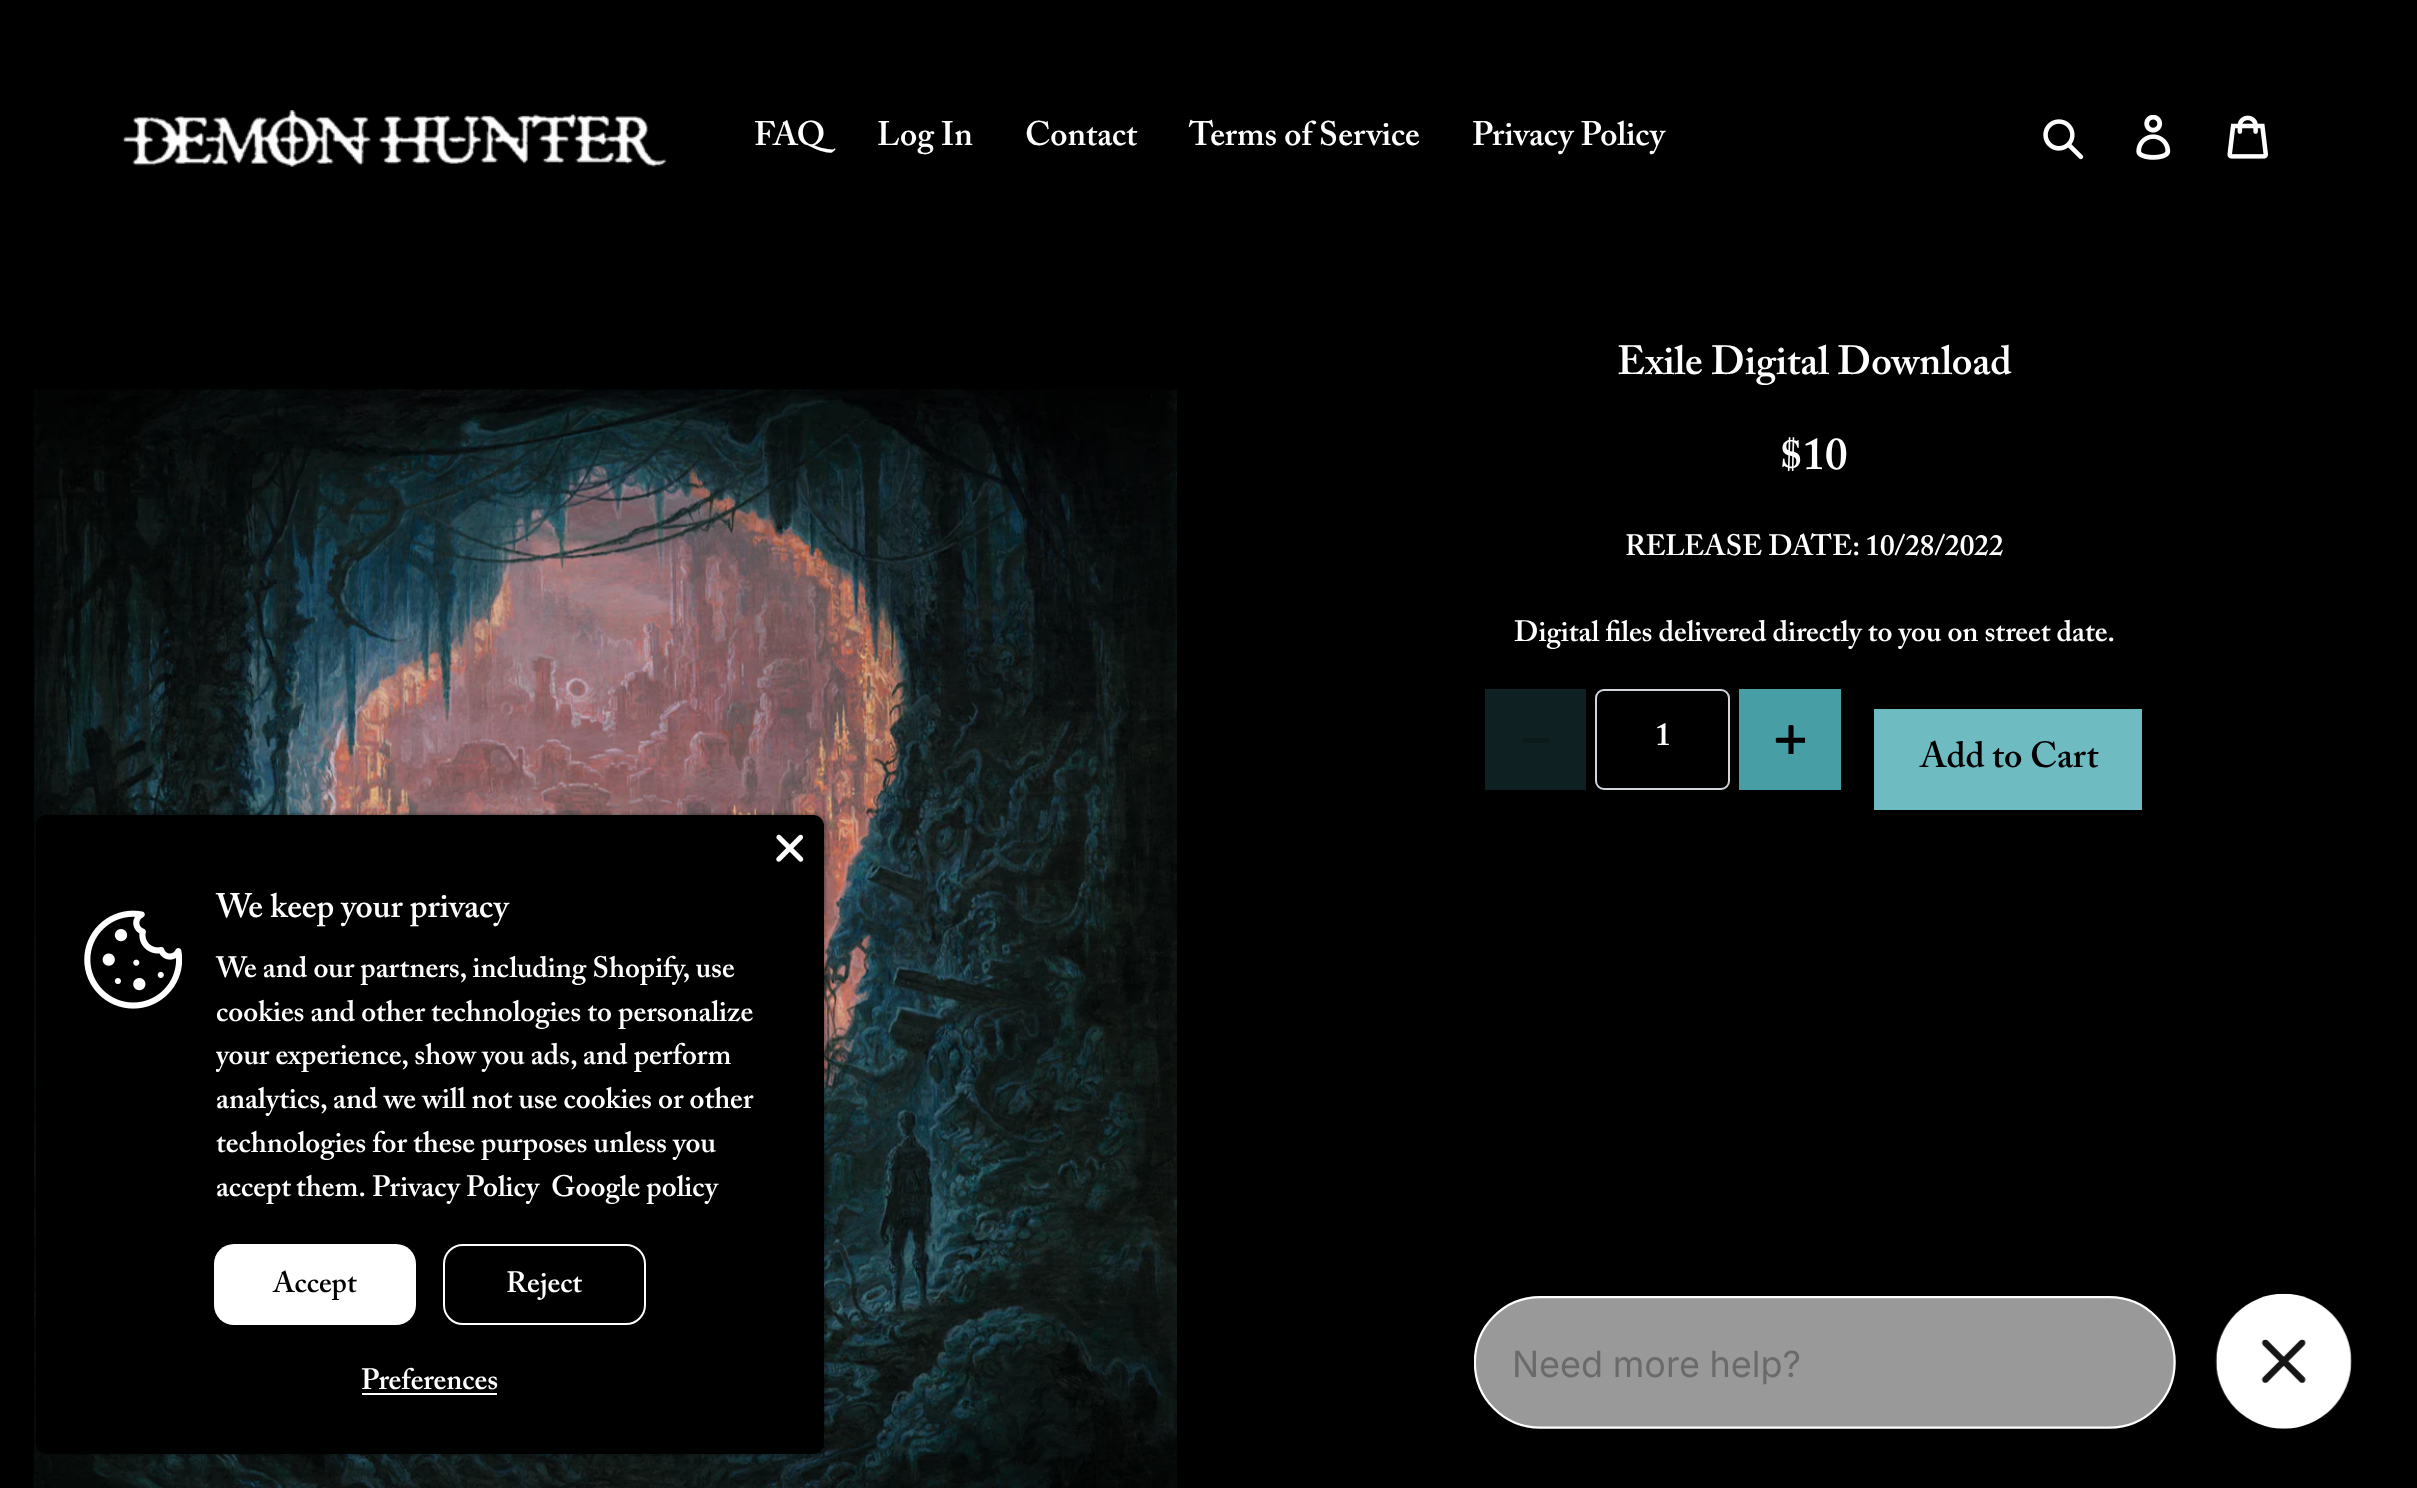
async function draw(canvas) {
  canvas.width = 2417;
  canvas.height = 1488;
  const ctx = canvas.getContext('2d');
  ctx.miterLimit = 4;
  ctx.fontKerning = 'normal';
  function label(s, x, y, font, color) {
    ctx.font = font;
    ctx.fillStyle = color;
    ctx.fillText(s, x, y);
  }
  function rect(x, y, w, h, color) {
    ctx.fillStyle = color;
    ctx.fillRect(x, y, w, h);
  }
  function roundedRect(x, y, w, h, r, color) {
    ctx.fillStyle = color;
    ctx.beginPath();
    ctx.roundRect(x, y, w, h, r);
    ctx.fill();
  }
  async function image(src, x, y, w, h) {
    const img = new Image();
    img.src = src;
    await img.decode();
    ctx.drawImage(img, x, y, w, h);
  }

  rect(0, 0, 2417, 1488, '#000');
  await image('assets/img1.png', 123, 110, 543, 57);
  label('FAQ', 754, 145, '600 33.75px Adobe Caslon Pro', '#fff');
  label('Log In', 877, 145, '600 33.75px Adobe Caslon Pro', '#fff');
  label('Contact', 1025, 145, '600 33.75px Adobe Caslon Pro', '#fff');
  label('Terms of Service', 1189, 145, '600 33.75px Adobe Caslon Pro', '#fff');
  label('Privacy Policy', 1472, 145, '600 33.75px Adobe Caslon Pro', '#fff');
  await image('assets/img2.png', 2043, 119, 41, 41);
  await image('assets/img3.png', 2136, 115, 35, 45);
  await image('assets/img4.png', 2227, 115, 41, 44);
  await image('assets/img5.png', 34, 389, 1143, 1099);
  label('Exile Digital Download', 1617, 374, '600 40.5px Adobe Caslon Pro', '#fff');
  label('$10', 1780, 469, '600 45px Adobe Caslon Pro', '#fff');
  label('RELEASE DATE: 10/28/2022', 1625, 555, '600 29.25px Adobe Caslon Pro', '#fff');
  label('Digital files delivered directly to you on street date.', 1514, 641, '600 29.25px Adobe Caslon Pro', '#fff');
  rect(1485, 689, 101, 101, '#0e2021');
  rect(1522, 738, 28, 5, '#0b1a1a');
  ctx.beginPath();
  ctx.roundRect(1596, 690, 133, 99, 8);
  ctx.strokeStyle = '#d1d5db';
  ctx.lineWidth = 2;
  ctx.stroke();
  label('1', 1655, 745, '600 32px Adobe Caslon Pro', '#fff');
  rect(1739, 689, 102, 101, '#479ea4');
  await image('assets/img6.png', 1775, 725, 30, 29);
  rect(1874, 709, 268, 101, '#6ebcc2');
  label('Add to Cart', 1920, 767, '600 36px Adobe Caslon Pro', '#000');
  ctx.fillStyle = '#00000080';
  ctx.filter = 'blur(2px)';
  ctx.beginPath();
  ctx.roundRect(36, 815, 788, 639, 11);
  ctx.fill();
  ctx.filter = 'none';
  roundedRect(36, 815, 788, 639, 11, '#000');
  await image('assets/img7.png', 776, 834, 28, 28);
  await image('assets/img8.png', 84, 910, 98, 99);
  label('We keep your privacy', 216, 917, '600 33.75px Adobe Caslon Pro', '#fff');
  label('We and our partners, including Shopify, use', 216, 977, '600 29.25px Adobe Caslon Pro', '#fff');
  label('cookies and other technologies to personalize', 216, 1021, '600 29.25px Adobe Caslon Pro', '#fff');
  ctx.save();
  ctx.beginPath();
  ctx.rect(216, 947, 551, 264);
  ctx.clip();
  label('your experience, show you ads, and perform', 216, 1064, '600 29.25px Adobe Caslon Pro', '#fff');
  ctx.restore();
  label('analytics, and we will not use cookies or other', 216, 1108, '600 29.25px Adobe Caslon Pro', '#fff');
  label('technologies for these purposes unless you', 216, 1152, '600 29.25px Adobe Caslon Pro', '#fff');
  ctx.wordSpacing = '-1px';
  label('accept them.', 216, 1196, '600 29.25px Adobe Caslon Pro', '#fff');
  ctx.wordSpacing = '0px';
  label('Privacy Policy', 372, 1196, '600 29.25px Adobe Caslon Pro', '#fff');
  label('Google policy', 551, 1196, '600 29.25px Adobe Caslon Pro', '#fff');
  roundedRect(214, 1244, 202, 81, 20, '#fff');
  label('Accept', 273, 1292, '600 29.25px Adobe Caslon Pro', '#000');
  ctx.beginPath();
  ctx.roundRect(444, 1245, 201, 79, 19);
  ctx.strokeStyle = '#fff';
  ctx.stroke();
  label('Reject', 506, 1292, '600 29.25px Adobe Caslon Pro', '#fff');
  label('Preferences', 361, 1389, '600 29.25px Adobe Caslon Pro', '#fff');
  rect(362, 1393, 135, 2, '#fff');
  await image('assets/img9.png', 1474, 1293, 878, 136);
}

draw(document.querySelector('canvas'));
